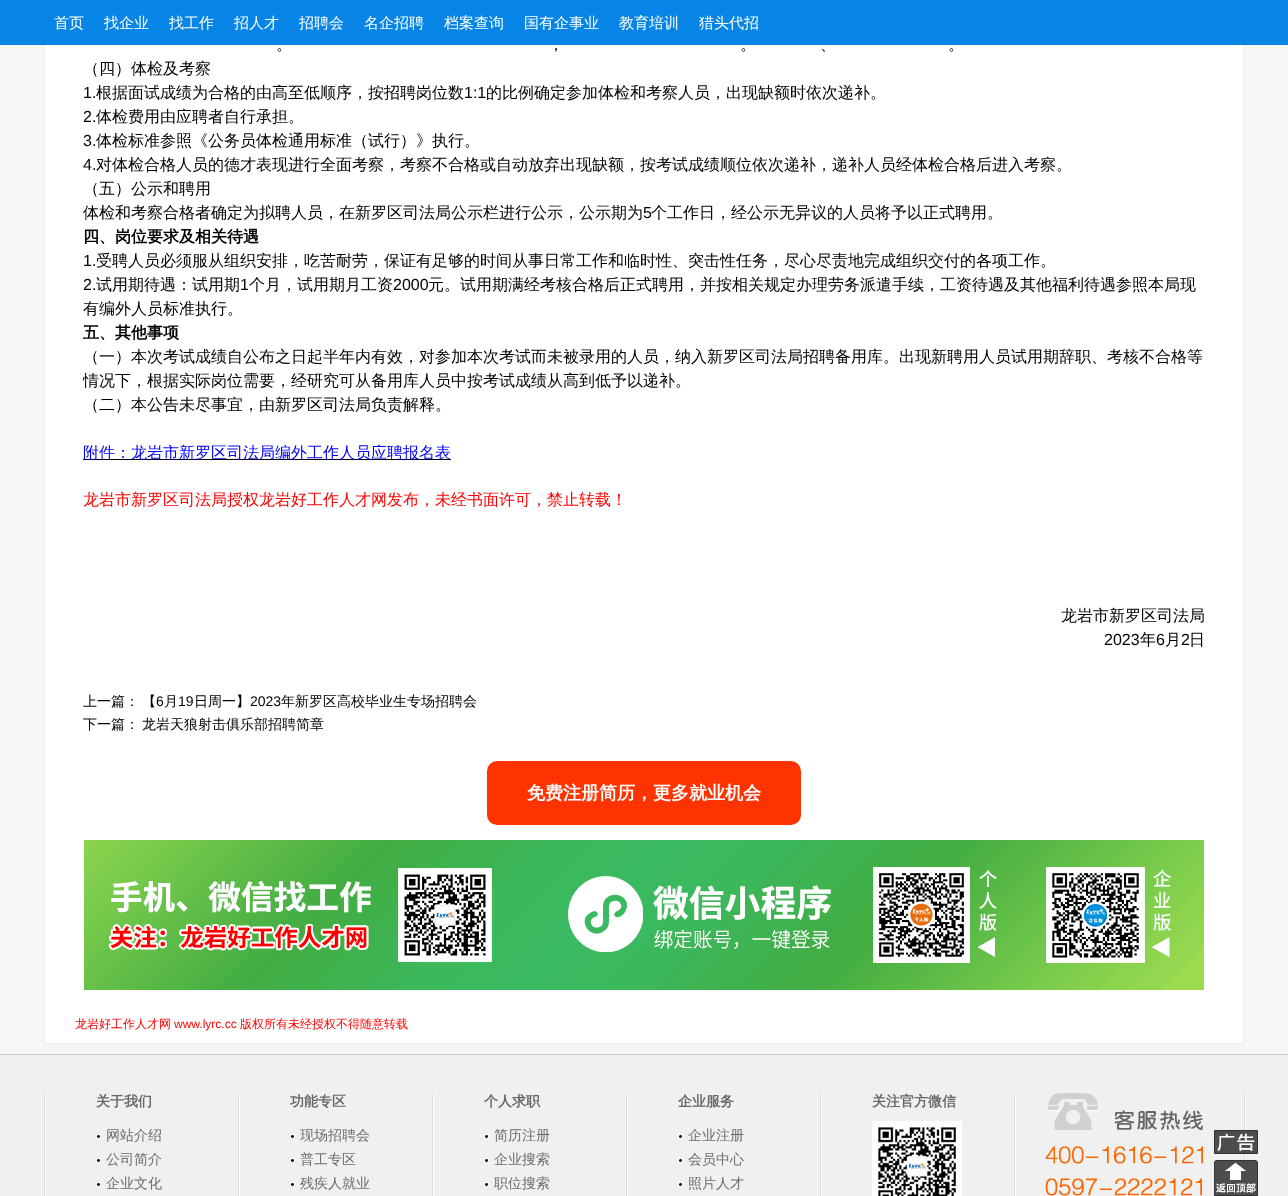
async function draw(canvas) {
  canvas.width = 1288;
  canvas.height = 1196;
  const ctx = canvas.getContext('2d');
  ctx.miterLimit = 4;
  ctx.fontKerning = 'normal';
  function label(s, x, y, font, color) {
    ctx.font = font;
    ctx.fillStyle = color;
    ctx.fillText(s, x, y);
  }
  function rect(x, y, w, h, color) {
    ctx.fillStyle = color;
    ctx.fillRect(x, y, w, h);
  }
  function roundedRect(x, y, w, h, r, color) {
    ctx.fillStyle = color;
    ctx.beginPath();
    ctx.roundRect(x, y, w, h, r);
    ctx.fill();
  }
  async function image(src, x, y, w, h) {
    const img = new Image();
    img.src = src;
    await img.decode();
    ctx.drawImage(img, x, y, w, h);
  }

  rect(0, 0, 1288, 1196, '#f6f6f8');
  rect(45, 45, 1198, 998, '#fff');
  ctx.strokeStyle = '#eee';
  ctx.strokeRect(44.5, -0.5, 1199, 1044);
  rect(0, 0, 1288, 45, '#0685e6');
  label('首页', 54, 28, '500 15px WenQuanYi Zen Hei', '#fff');
  label('找企业', 104, 28, '500 15px WenQuanYi Zen Hei', '#fff');
  label('找工作', 169, 28, '500 15px WenQuanYi Zen Hei', '#fff');
  label('招人才', 234, 28, '500 15px WenQuanYi Zen Hei', '#fff');
  label('招聘会', 299, 28, '500 15px WenQuanYi Zen Hei', '#fff');
  label('名企招聘', 364, 28, '500 15px WenQuanYi Zen Hei', '#fff');
  label('档案查询', 444, 28, '500 15px WenQuanYi Zen Hei', '#fff');
  label('国有企事业', 524, 28, '500 15px WenQuanYi Zen Hei', '#fff');
  label('教育培训', 619, 28, '500 15px WenQuanYi Zen Hei', '#fff');
  label('猎头代招', 699, 28, '500 15px WenQuanYi Zen Hei', '#fff');
  label('。', 276, 50, '500 16px WenQuanYi Zen Hei', '#000');
  label('，', 548, 50, '500 16px WenQuanYi Zen Hei', '#000');
  label('。', 740, 50, '500 16px WenQuanYi Zen Hei', '#000');
  label('、', 820, 50, '500 16px WenQuanYi Zen Hei', '#000');
  label('。', 948, 50, '500 16px WenQuanYi Zen Hei', '#000');
  label('（四）体检及考察', 83, 74, '500 16px WenQuanYi Zen Hei', '#000');
  label('1.', 83, 98, '16px Liberation Sans', '#000');
  label('根据面试成绩为合格的由高至低顺序，按招聘岗位数', 96, 98, '500 16px WenQuanYi Zen Hei', '#000');
  label('1:1', 464, 98, '16px Liberation Sans', '#000');
  label('的比例确定参加体检和考察人员，出现缺额时依次递补。', 486, 98, '500 16px WenQuanYi Zen Hei', '#000');
  label('2.', 83, 122, '16px Liberation Sans', '#000');
  label('体检费用由应聘者自行承担。', 96, 122, '500 16px WenQuanYi Zen Hei', '#000');
  label('3.', 83, 146, '16px Liberation Sans', '#000');
  label('体检标准参照《公务员体检通用标准（试行）》执行。', 96, 146, '500 16px WenQuanYi Zen Hei', '#000');
  label('4.', 83, 170, '16px Liberation Sans', '#000');
  label('对体检合格人员的德才表现进行全面考察，考察不合格或自动放弃出现缺额，按考试成绩顺位依次递补，递补人员经体检合格后进入考察。', 96, 170, '500 16px WenQuanYi Zen Hei', '#000');
  label('（五）公示和聘用', 83, 194, '500 16px WenQuanYi Zen Hei', '#000');
  label('体检和考察合格者确定为拟聘人员，在新罗区司法局公示栏进行公示，公示期为', 83, 218, '500 16px WenQuanYi Zen Hei', '#000');
  label('5', 643, 218, '16px Liberation Sans', '#000');
  label('个工作日，经公示无异议的人员将予以正式聘用。', 651, 218, '500 16px WenQuanYi Zen Hei', '#000');
  label('四、岗位要求及相关待遇', 83, 242, 'bold 16px WenQuanYi Zen Hei', '#000');
  label('1.', 83, 266, '16px Liberation Sans', '#000');
  label('受聘人员必须服从组织安排，吃苦耐劳，保证有足够的时间从事日常工作和临时性、突击性任务，尽心尽责地完成组织交付的各项工作。', 96, 266, '500 16px WenQuanYi Zen Hei', '#000');
  label('2.', 83, 290, '16px Liberation Sans', '#000');
  label('试用期待遇：试用期', 96, 290, '500 16px WenQuanYi Zen Hei', '#000');
  label('1', 240, 290, '16px Liberation Sans', '#000');
  label('个月，试用期月工资', 249, 290, '500 16px WenQuanYi Zen Hei', '#000');
  label('2000', 393, 290, '16px Liberation Sans', '#000');
  label('元。试用期满经考核合格后正式聘用，并按相关规定办理劳务派遣手续，工资待遇及其他福利待遇参照本局现', 428, 290, '500 16px WenQuanYi Zen Hei', '#000');
  label('有编外人员标准执行。', 83, 314, '500 16px WenQuanYi Zen Hei', '#000');
  label('五、其他事项', 83, 338, 'bold 16px WenQuanYi Zen Hei', '#000');
  label('（一）本次考试成绩自公布之日起半年内有效，对参加本次考试而未被录用的人员，纳入新罗区司法局招聘备用库。出现新聘用人员试用期辞职、考核不合格等', 83, 362, '500 16px WenQuanYi Zen Hei', '#000');
  label('情况下，根据实际岗位需要，经研究可从备用库人员中按考试成绩从高到低予以递补。', 83, 386, '500 16px WenQuanYi Zen Hei', '#000');
  label('（二）本公告未尽事宜，由新罗区司法局负责解释。', 83, 410, '500 16px WenQuanYi Zen Hei', '#000');
  rect(83, 459, 368, 1, '#000');
  label('附件：龙岩市新罗区司法局编外工作人员应聘报名表', 83, 458, '500 16px WenQuanYi Zen Hei', '#00f');
  label('龙岩市新罗区司法局授权龙岩好工作人才网发布，未经书面许可，禁止转载！', 83, 505, '500 16px WenQuanYi Zen Hei', '#f00');
  label('龙岩市新罗区司法局', 1061, 621, '500 16px WenQuanYi Zen Hei', '#000');
  label('2023', 1104, 645, '16px Liberation Sans', '#000');
  label('年', 1140, 645, '500 16px WenQuanYi Zen Hei', '#000');
  label('6', 1156, 645, '16px Liberation Sans', '#000');
  label('月', 1165, 645, '500 16px WenQuanYi Zen Hei', '#000');
  label('2', 1181, 645, '16px Liberation Sans', '#000');
  label('日', 1189, 645, '500 16px WenQuanYi Zen Hei', '#000');
  label('上一篇：', 83, 706, '500 14px WenQuanYi Zen Hei', '#000');
  label('【', 142, 706, '500 14px WenQuanYi Zen Hei', '#000');
  label('6', 156, 706, '14px Liberation Sans', '#000');
  label('月', 164, 706, '500 14px WenQuanYi Zen Hei', '#000');
  label('19', 178, 706, '14px Liberation Sans', '#000');
  label('日周一】', 194, 706, '500 14px WenQuanYi Zen Hei', '#000');
  label('2023', 250, 706, '14px Liberation Sans', '#000');
  label('年新罗区高校毕业生专场招聘会', 281, 706, '500 14px WenQuanYi Zen Hei', '#000');
  label('下一篇：', 83, 729, '500 14px WenQuanYi Zen Hei', '#000');
  label('龙岩天狼射击俱乐部招聘简章', 142, 729, '500 14px WenQuanYi Zen Hei', '#000');
  roundedRect(487, 761, 314, 64, 10, '#f30');
  label('免费注册简历，更多就业机会', 527, 799, 'bold 18px WenQuanYi Zen Hei', '#fff');
  await image('assets/img1.png', 84, 840, 1120, 150);
  label('龙岩好工作人才网', 75, 1028, '500 12px WenQuanYi Zen Hei', '#f00');
  label('www.lyrc.cc', 174, 1028, '12px Liberation Sans', '#f00');
  label('版权所有未经授权不得随意转载', 240, 1028, '500 12px WenQuanYi Zen Hei', '#f00');
  rect(0, 1055, 1288, 141, '#f0f0f0');
  rect(0, 1054, 1288, 1, '#ccc');
  rect(1245, 1093, 1, 67, '#fff');
  rect(44, 1093, 1, 103, '#dadada');
  rect(238, 1093, 1, 103, '#dadada');
  rect(45, 1093, 1, 103, '#fff');
  label('关于我们', 96, 1106, 'bold 14px WenQuanYi Zen Hei', '#676767');
  await image('assets/img2.png', 96, 1134, 5, 5);
  label('网站介绍', 106, 1140, '500 14px WenQuanYi Zen Hei', '#686e6f');
  await image('assets/img2.png', 96, 1158, 5, 5);
  label('公司简介', 106, 1164, '500 14px WenQuanYi Zen Hei', '#686e6f');
  await image('assets/img2.png', 96, 1182, 5, 5);
  label('企业文化', 106, 1188, '500 14px WenQuanYi Zen Hei', '#686e6f');
  rect(432, 1093, 1, 103, '#dadada');
  rect(239, 1093, 1, 103, '#fff');
  label('功能专区', 290, 1106, 'bold 14px WenQuanYi Zen Hei', '#676767');
  await image('assets/img2.png', 290, 1134, 5, 5);
  label('现场招聘会', 300, 1140, '500 14px WenQuanYi Zen Hei', '#686e6f');
  await image('assets/img2.png', 290, 1158, 5, 5);
  label('普工专区', 300, 1164, '500 14px WenQuanYi Zen Hei', '#686e6f');
  await image('assets/img2.png', 290, 1182, 5, 5);
  label('残疾人就业', 300, 1188, '500 14px WenQuanYi Zen Hei', '#686e6f');
  rect(626, 1093, 1, 103, '#dadada');
  rect(433, 1093, 1, 103, '#fff');
  label('个人求职', 484, 1106, 'bold 14px WenQuanYi Zen Hei', '#676767');
  await image('assets/img2.png', 484, 1134, 5, 5);
  label('简历注册', 494, 1140, '500 14px WenQuanYi Zen Hei', '#686e6f');
  await image('assets/img2.png', 484, 1158, 5, 5);
  label('企业搜索', 494, 1164, '500 14px WenQuanYi Zen Hei', '#686e6f');
  await image('assets/img2.png', 484, 1182, 5, 5);
  label('职位搜索', 494, 1188, '500 14px WenQuanYi Zen Hei', '#686e6f');
  rect(820, 1093, 1, 103, '#dadada');
  rect(627, 1093, 1, 103, '#fff');
  label('企业服务', 678, 1106, 'bold 14px WenQuanYi Zen Hei', '#676767');
  await image('assets/img2.png', 678, 1134, 5, 5);
  label('企业注册', 688, 1140, '500 14px WenQuanYi Zen Hei', '#686e6f');
  await image('assets/img2.png', 678, 1158, 5, 5);
  label('会员中心', 688, 1164, '500 14px WenQuanYi Zen Hei', '#686e6f');
  await image('assets/img2.png', 678, 1182, 5, 5);
  label('照片人才', 688, 1188, '500 14px WenQuanYi Zen Hei', '#686e6f');
  rect(1014, 1093, 1, 103, '#dadada');
  rect(821, 1093, 1, 103, '#fff');
  label('关注官方微信', 872, 1106, 'bold 14px WenQuanYi Zen Hei', '#676767');
  await image('assets/img3.png', 872, 1121, 90, 75);
  rect(1244, 1093, 1, 67, '#dadada');
  rect(1015, 1093, 1, 103, '#fff');
  await image('assets/img4.png', 1045, 1093, 158, 103);
  await image('assets/img5.png', 1214, 1130, 44, 66);
}

draw(document.querySelector('canvas'));
